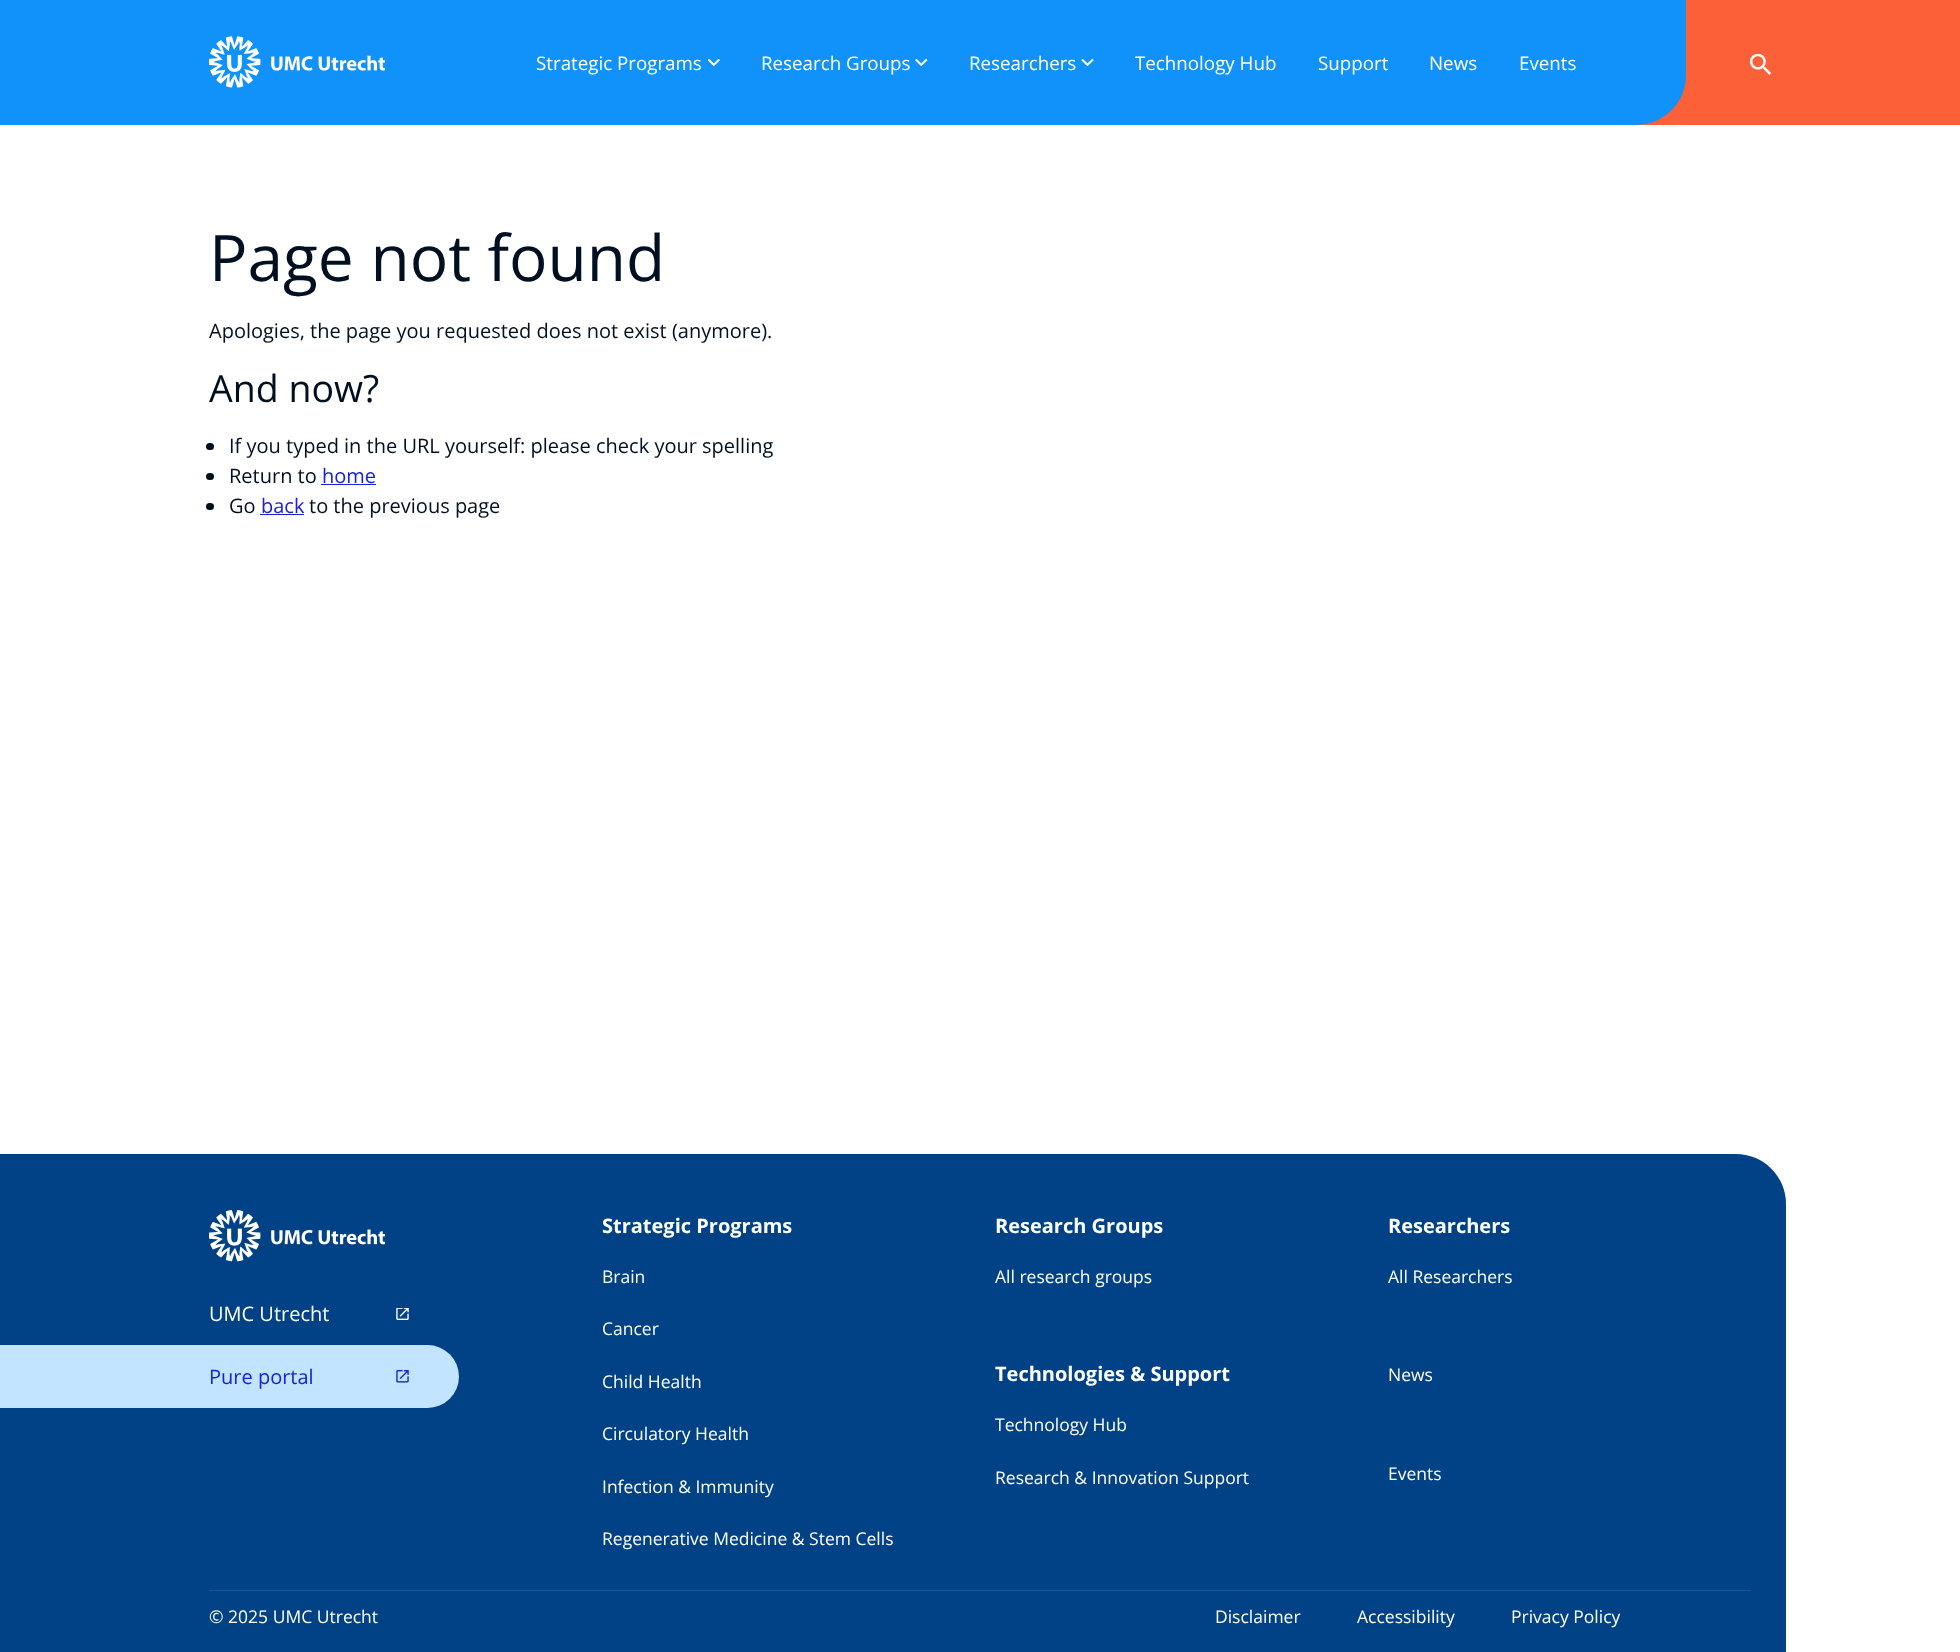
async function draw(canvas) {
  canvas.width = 1960;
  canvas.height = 1652;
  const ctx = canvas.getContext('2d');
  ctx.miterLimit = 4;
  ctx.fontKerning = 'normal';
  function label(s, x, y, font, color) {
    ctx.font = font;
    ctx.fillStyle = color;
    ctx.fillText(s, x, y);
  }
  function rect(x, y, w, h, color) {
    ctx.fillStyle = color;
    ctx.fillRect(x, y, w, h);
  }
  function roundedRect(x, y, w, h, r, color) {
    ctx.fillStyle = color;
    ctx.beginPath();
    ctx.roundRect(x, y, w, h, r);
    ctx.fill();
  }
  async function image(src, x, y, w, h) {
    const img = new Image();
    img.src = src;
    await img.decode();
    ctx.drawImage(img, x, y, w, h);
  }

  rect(0, 0, 1960, 1652, '#fff');
  rect(1636, 0, 324, 125, '#fc6039');
  rect(0, 0, 1586, 125, '#1191fa');
  await image('assets/img1.png', 209, 36, 176, 52);
  label('Strategic Programs', 536, 70, '18.75px Open Sans', '#fff');
  await image('assets/img2.png', 708, 59, 12, 7);
  label('Research Groups', 761, 70, '18.75px Open Sans', '#fff');
  await image('assets/img3.png', 915, 59, 13, 7);
  label('Researchers', 969, 70, '18.75px Open Sans', '#fff');
  await image('assets/img4.png', 1081, 59, 13, 7);
  label('Technology Hub', 1135, 70, '18.75px Open Sans', '#fff');
  label('Support', 1318, 70, '18.75px Open Sans', '#fff');
  label('News', 1429, 70, '18.75px Open Sans', '#fff');
  label('Events', 1519, 70, '18.75px Open Sans', '#fff');
  ctx.fillStyle = '#1191fa';
  ctx.beginPath();
  ctx.roundRect(1586, 0, 100, 125, [0, 0, 50, 0]);
  ctx.fill();
  await image('assets/img5.png', 1750, 54, 21, 21);
  label('Page not found', 209, 281, '64px Open Sans', '#001021');
  label('Apologies, the page you requested does not exist (anymore).', 209, 338, '20px Open Sans', '#001021');
  label('And now?', 209, 402, '37.5px Open Sans', '#001021');
  roundedRect(206, 443, 8, 7, 3.5, '#001021');
  label('If you typed in the URL yourself: please check your spelling', 229, 453, '20px Open Sans', '#001021');
  roundedRect(206, 473, 8, 7, 3.5, '#001021');
  label('Return to', 229, 483, '20px Open Sans', '#001021');
  label('home', 322, 483, '20px Open Sans', '#1a21d5');
  rect(321, 484, 55, 1, '#1a21d5');
  roundedRect(206, 503, 8, 7, 3.5, '#001021');
  label('Go', 229, 513, '20px Open Sans', '#001021');
  label('back', 261, 513, '20px Open Sans', '#1a21d5');
  rect(260, 514, 44, 1, '#1a21d5');
  label('to the previous page', 309, 513, '20px Open Sans', '#001021');
  rect(0, 1154, 174, 498, '#004285');
  ctx.beginPath();
  ctx.roundRect(174, 1154, 1612, 437, [0, 50, 0, 0]);
  ctx.fill();
  await image('assets/img6.png', 209, 1210, 176, 52);
  label('UMC Utrecht', 209, 1321, '20px Open Sans', '#fff');
  await image('assets/img7.png', 396, 1308, 13, 12);
  ctx.fillStyle = '#c2e4ff';
  ctx.beginPath();
  ctx.roundRect(209, 1345, 250, 63, [0, 31.5, 31.5, 0]);
  ctx.fill();
  rect(0, 1345, 209, 63, '#c2e4ff');
  label('Pure portal', 209, 1384, '20px Open Sans', '#1a21d5');
  await image('assets/img8.png', 396, 1370, 13, 13);
  label('Strategic Programs', 602, 1233, 'bold 20px Open Sans', '#fff');
  label('Brain', 602, 1283, '17.5px Open Sans', '#fff');
  label('Cancer', 602, 1335, '17.5px Open Sans', '#fff');
  label('Child Health', 602, 1388, '17.5px Open Sans', '#fff');
  label('Circulatory Health', 602, 1440, '17.5px Open Sans', '#fff');
  label('Infection & Immunity', 602, 1493, '17.5px Open Sans', '#fff');
  label('Regenerative Medicine & Stem Cells', 602, 1545, '17.5px Open Sans', '#fff');
  label('Research Groups', 995, 1233, 'bold 20px Open Sans', '#fff');
  label('All research groups', 995, 1283, '17.5px Open Sans', '#fff');
  label('Technologies & Support', 995, 1381, 'bold 20px Open Sans', '#fff');
  label('Technology Hub', 995, 1431, '17.5px Open Sans', '#fff');
  label('Research & Innovation Support', 995, 1484, '17.5px Open Sans', '#fff');
  label('Researchers', 1388, 1233, 'bold 20px Open Sans', '#fff');
  label('All Researchers', 1388, 1283, '17.5px Open Sans', '#fff');
  label('News', 1388, 1381, '17.5px Open Sans', '#fff');
  label('Events', 1388, 1480, '17.5px Open Sans', '#fff');
  rect(209, 1590, 1542, 1, '#195591');
  rect(174, 1591, 1612, 61, '#004285');
  label('© 2025 UMC Utrecht', 209, 1623, '17.5px Open Sans', '#fff');
  label('Disclaimer', 1215, 1623, '17.5px Open Sans', '#fff');
  label('Accessibility', 1357, 1623, '17.5px Open Sans', '#fff');
  label('Privacy Policy', 1511, 1623, '17.5px Open Sans', '#fff');
}

draw(document.querySelector('canvas'));
